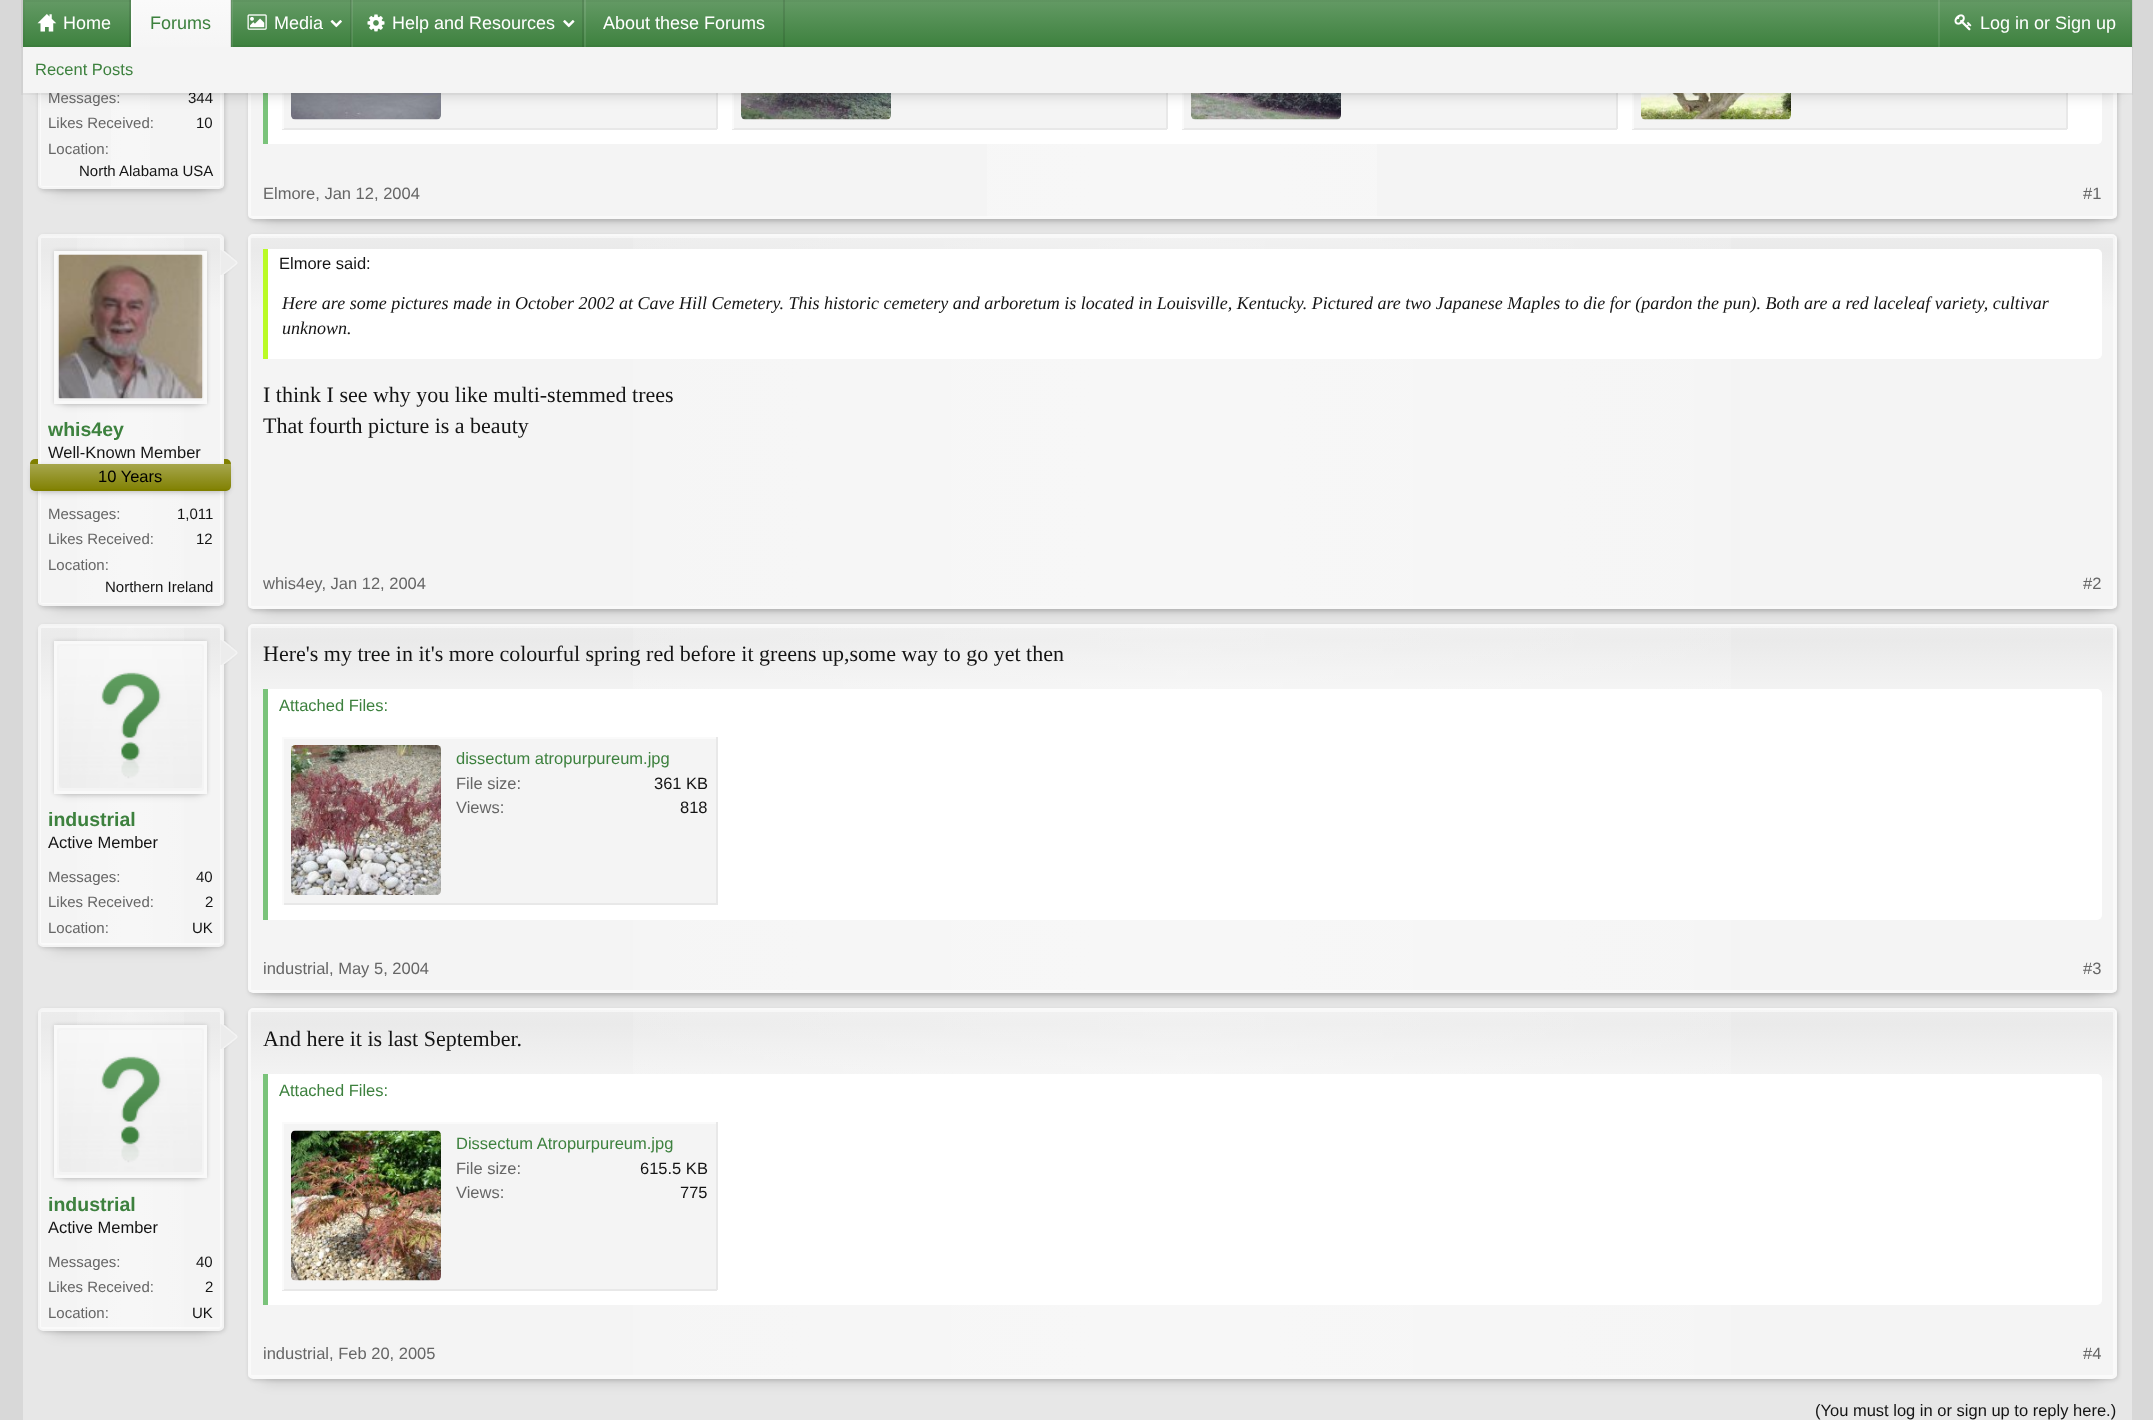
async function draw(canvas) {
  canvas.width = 2153;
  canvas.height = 1420;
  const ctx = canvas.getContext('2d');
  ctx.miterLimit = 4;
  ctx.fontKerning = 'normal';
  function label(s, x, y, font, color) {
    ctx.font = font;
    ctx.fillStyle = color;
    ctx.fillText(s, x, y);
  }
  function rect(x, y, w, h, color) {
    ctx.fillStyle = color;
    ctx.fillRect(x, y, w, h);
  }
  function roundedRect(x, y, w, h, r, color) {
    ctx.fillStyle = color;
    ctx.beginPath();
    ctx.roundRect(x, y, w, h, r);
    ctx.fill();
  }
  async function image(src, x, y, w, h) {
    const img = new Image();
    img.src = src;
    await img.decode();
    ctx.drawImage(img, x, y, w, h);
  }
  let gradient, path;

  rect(0, 0, 2153, 1420, '#d8d8d8');
  gradient = ctx.createLinearGradient(1077, -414, 1077, 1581);
  gradient.addColorStop(0, '#f1f1f1');
  gradient.addColorStop(0.15, '#e7e7e7');
  ctx.fillStyle = gradient;
  ctx.fillRect(23, 93, 2109, 1327);
  ctx.fillStyle = '#00000033';
  ctx.filter = 'blur(7.5px)';
  ctx.beginPath();
  ctx.rect(53, -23, 156, 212);
  ctx.fill();
  ctx.filter = 'none';
  ctx.fillStyle = '#00000026';
  ctx.filter = 'blur(2px)';
  ctx.beginPath();
  ctx.roundRect(39, -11, 186, 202, 5);
  ctx.fill();
  ctx.filter = 'none';
  ctx.save();
  ctx.beginPath();
  ctx.roundRect(38, -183, 186, 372, 5);
  ctx.clip();
  gradient = ctx.createLinearGradient(130, -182, 131, 188);
  gradient.addColorStop(0, '#ececec');
  gradient.addColorStop(0.04, '#eaeaea');
  gradient.addColorStop(0.2, '#f4f4f4');
  ctx.fillStyle = gradient;
  ctx.fillRect(38, 93, 186, 95);
  ctx.restore();
  gradient = ctx.createLinearGradient(39, 3, 222, 3);
  gradient.addColorStop(0, '#ffffff00');
  gradient.addColorStop(0.5, '#ffffff4d');
  gradient.addColorStop(1, '#ffffff00');
  ctx.fillStyle = gradient;
  ctx.fillRect(111, 93, 39, 94);
  ctx.beginPath();
  ctx.roundRect(40, -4, 181, 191, 2);
  ctx.strokeStyle = '#ffffff80';
  ctx.lineWidth = 2;
  ctx.stroke();
  ctx.beginPath();
  ctx.roundRect(39, -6, 184, 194, 4);
  ctx.strokeStyle = '#f4f4f4';
  ctx.stroke();
  ctx.fillStyle = '#00000033';
  ctx.filter = 'blur(7.5px)';
  ctx.beginPath();
  ctx.rect(263, -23, 1839, 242);
  ctx.fill();
  ctx.filter = 'none';
  ctx.fillStyle = '#00000026';
  ctx.filter = 'blur(2px)';
  ctx.beginPath();
  ctx.roundRect(249, -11, 1869, 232, 5);
  ctx.fill();
  ctx.filter = 'none';
  ctx.save();
  ctx.beginPath();
  ctx.roundRect(248, -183, 1869, 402, 5);
  ctx.clip();
  gradient = ctx.createLinearGradient(1182, -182, 1182, 218);
  gradient.addColorStop(0, '#ececec');
  gradient.addColorStop(0.04, '#eaeaea');
  gradient.addColorStop(0.19, '#f4f4f4');
  ctx.fillStyle = gradient;
  ctx.fillRect(248, 93, 1869, 125);
  ctx.restore();
  gradient = ctx.createLinearGradient(249, 18, 2115, 18);
  gradient.addColorStop(0, '#ffffff00');
  gradient.addColorStop(0.5, '#ffffff4d');
  gradient.addColorStop(1, '#ffffff00');
  ctx.fillStyle = gradient;
  ctx.fillRect(987, 144, 390, 73);
  ctx.beginPath();
  ctx.roundRect(250, -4, 1864, 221, 2);
  ctx.strokeStyle = '#ffffff80';
  ctx.stroke();
  ctx.beginPath();
  ctx.roundRect(249, -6, 1867, 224, 4);
  ctx.strokeStyle = '#f9f9f9';
  ctx.stroke();
  ctx.fillStyle = '#fff';
  path = new Path2D('M263-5H2097C2100-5 2102-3 2102 0V139C2102 142 2100 144 2097 144H263Z');
  ctx.fill(path);
  rect(263, 93, 5, 51, '#7ac37a');
  rect(284, 93, 432, 35, '#f4f4f4');
  rect(716, 93, 2, 36, '#e8e8e8');
  rect(282, 128, 435, 2, '#e8e8e8');
  rect(282, 93, 2, 36, '#fafafa');
  await image('assets/img7.png', 291, 93, 150, 27);
  rect(734, 93, 432, 35, '#f4f4f4');
  rect(1166, 93, 2, 36, '#e8e8e8');
  rect(732, 128, 435, 2, '#e8e8e8');
  rect(732, 93, 2, 36, '#fafafa');
  await image('assets/img8.png', 741, 93, 150, 27);
  rect(1184, 93, 432, 35, '#f4f4f4');
  rect(1616, 93, 2, 36, '#e8e8e8');
  rect(1182, 128, 435, 2, '#e8e8e8');
  rect(1182, 93, 2, 36, '#fafafa');
  await image('assets/img9.png', 1191, 93, 150, 27);
  rect(1634, 93, 432, 35, '#f4f4f4');
  rect(2066, 93, 2, 36, '#e8e8e8');
  rect(1632, 128, 435, 2, '#e8e8e8');
  rect(1632, 93, 2, 36, '#fafafa');
  await image('assets/img10.png', 1641, 93, 150, 27);
  ctx.fillStyle = '#00000033';
  ctx.filter = 'blur(7.5px)';
  ctx.beginPath();
  ctx.rect(38, 30, 2079, 63);
  ctx.fill();
  ctx.filter = 'none';
  label('Messages:', 48, 103, '15px Liberation Sans', '#666');
  label('344', 188, 103, '15px Liberation Sans', '#141414');
  ctx.strokeStyle = '#00000008';
  ctx.strokeRect(22, 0, 2110, 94);
  ctx.strokeRect(22, 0, 2110, 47);
  gradient = ctx.createLinearGradient(1077, 0, 1077, 47);
  gradient.addColorStop(0, '#649a65');
  gradient.addColorStop(1, '#3d813e');
  ctx.fillStyle = gradient;
  ctx.fillRect(23, 0, 2109, 47);
  ctx.strokeRect(24, 1, 2107, 45);
  rect(129, 0, 2, 47, '#0000001a');
  await image('assets/img1.png', 37, 14, 20, 18);
  label('Home', 63, 29, '18px Liberation Sans', '#fff');
  gradient = ctx.createLinearGradient(181, 0, 181, 47);
  gradient.addColorStop(0, '#fafafa');
  gradient.addColorStop(1, '#f5f5f5');
  ctx.fillStyle = gradient;
  ctx.fillRect(131, 0, 100, 47);
  rect(230, 0, 2, 47, '#0000001a');
  rect(131, 0, 2, 47, '#ffffff80');
  label('Forums', 150, 29, '18px Liberation Sans', '#3d813e');
  rect(350, 0, 2, 47, '#0000001a');
  rect(231, 0, 2, 47, '#ffffff1a');
  await image('assets/img2.png', 247, 14, 20, 16);
  label('Media', 274, 29, '18px Liberation Sans', '#fff');
  await image('assets/img3.png', 330, 20, 12, 8);
  rect(582, 0, 2, 47, '#0000001a');
  rect(351, 0, 2, 47, '#ffffff1a');
  await image('assets/img4.png', 367, 14, 18, 18);
  label('Help and Resources', 392, 29, '18px Liberation Sans', '#fff');
  await image('assets/img5.png', 563, 20, 12, 8);
  rect(783, 0, 2, 47, '#0000001a');
  rect(584, 0, 2, 47, '#ffffff1a');
  label('About these Forums', 603, 29, '18px Liberation Sans', '#fff');
  rect(1938, 0, 2, 47, '#ffffff1a');
  await image('assets/img6.png', 1954, 14, 18, 17);
  label('Log in or Sign up', 1980, 29, '18px Liberation Sans', '#fff');
  rect(23, 47, 2109, 46, '#f4f4f4');
  label('Recent Posts', 35, 75, '16.5px Liberation Sans', '#3d813e');
  label('Likes Received:', 48, 128, '15px Liberation Sans', '#666');
  label('10', 196, 128, '15px Liberation Sans', '#141414');
  label('Location:', 48, 154, '15px Liberation Sans', '#666');
  label('North Alabama USA', 79, 176, '15px Liberation Sans', '#141414');
  label('Elmore, Jan 12, 2004', 263, 199, '16.5px Liberation Sans', '#666');
  label('#1', 2083, 199, '16.5px Liberation Sans', '#666');
  ctx.fillStyle = '#00000033';
  ctx.filter = 'blur(7.5px)';
  ctx.beginPath();
  ctx.rect(53, 264, 156, 342);
  ctx.fill();
  ctx.filter = 'none';
  ctx.fillStyle = '#00000026';
  ctx.filter = 'blur(2px)';
  ctx.beginPath();
  ctx.roundRect(39, 236, 186, 372, 5);
  ctx.fill();
  ctx.filter = 'none';
  ctx.save();
  ctx.beginPath();
  ctx.roundRect(38, 234, 186, 372, 5);
  ctx.clip();
  gradient = ctx.createLinearGradient(130, 236, 131, 605);
  gradient.addColorStop(0, '#ececec');
  gradient.addColorStop(0.04, '#eaeaea');
  gradient.addColorStop(0.2, '#f4f4f4');
  ctx.fillStyle = gradient;
  ctx.fillRect(38, 236, 186, 369);
  ctx.restore();
  gradient = ctx.createLinearGradient(39, 420, 222, 420);
  gradient.addColorStop(0, '#ffffff00');
  gradient.addColorStop(0.5, '#ffffff4d');
  gradient.addColorStop(1, '#ffffff00');
  ctx.fillStyle = gradient;
  ctx.fillRect(77, 236, 107, 368);
  ctx.beginPath();
  ctx.roundRect(40, 237, 181, 367, 2);
  ctx.strokeStyle = '#ffffff80';
  ctx.stroke();
  ctx.beginPath();
  ctx.roundRect(39, 235, 184, 370, 4);
  ctx.strokeStyle = '#f4f4f4';
  ctx.stroke();
  ctx.fillStyle = '#00000033';
  ctx.filter = 'blur(4px)';
  ctx.beginPath();
  ctx.rect(62, 266, 138, 138);
  ctx.fill();
  ctx.filter = 'none';
  ctx.fillStyle = '#00000026';
  ctx.filter = 'blur(2px)';
  ctx.beginPath();
  ctx.rect(54, 251, 153, 153);
  ctx.fill();
  ctx.filter = 'none';
  rect(54, 251, 153, 153, '#f9f9f9');
  roundedRect(57, 254, 147, 147, 3, '#f4f4f4');
  await image('assets/img11.png', 58, 254, 145, 145);
  await image('assets/img12.png', 220, 250, 18, 25);
  label('whis4ey', 48, 436, 'bold 19.5px Liberation Sans', '#3d813e');
  label('Well-Known Member', 48, 458, '16.5px Liberation Sans', '#141414');
  ctx.fillStyle = '#00000033';
  ctx.filter = 'blur(4px)';
  ctx.beginPath();
  ctx.rect(38, 479, 186, 12);
  ctx.fill();
  ctx.filter = 'none';
  ctx.fillStyle = '#0000001a';
  ctx.filter = 'blur(2px)';
  ctx.beginPath();
  ctx.roundRect(30, 465, 201, 27, 5);
  ctx.fill();
  ctx.filter = 'none';
  ctx.fillStyle = '#808000';
  ctx.beginPath();
  ctx.roundRect(30, 464, 201, 27, [0, 0, 5, 5]);
  ctx.fill();
  gradient = ctx.createLinearGradient(131, 464, 131, 491);
  gradient.addColorStop(0, '#ffffff4d');
  gradient.addColorStop(1, '#ffffff00');
  ctx.fillStyle = gradient;
  ctx.fillRect(30, 464, 201, 25);
  ctx.fillStyle = '#808000';
  ctx.beginPath();
  ctx.roundRect(30, 459, 8, 5, [5, 0, 0, 0]);
  ctx.fill();
  ctx.beginPath();
  ctx.roundRect(224, 459, 7, 5, [0, 5, 0, 0]);
  ctx.fill();
  label('10 Years', 98, 482, '16.5px Liberation Sans', '#000');
  label('Messages:', 48, 519, '15px Liberation Sans', '#666');
  label('1,011', 177, 519, '15px Liberation Sans', '#141414');
  label('Likes Received:', 48, 544, '15px Liberation Sans', '#666');
  label('12', 196, 544, '15px Liberation Sans', '#141414');
  label('Location:', 48, 570, '15px Liberation Sans', '#666');
  label('Northern Ireland', 105, 592, '15px Liberation Sans', '#141414');
  ctx.fillStyle = '#00000033';
  ctx.filter = 'blur(7.5px)';
  ctx.beginPath();
  ctx.rect(263, 264, 1839, 345);
  ctx.fill();
  ctx.filter = 'none';
  ctx.fillStyle = '#00000026';
  ctx.filter = 'blur(2px)';
  ctx.beginPath();
  ctx.roundRect(249, 236, 1869, 375, 5);
  ctx.fill();
  ctx.filter = 'none';
  ctx.save();
  ctx.beginPath();
  ctx.roundRect(248, 234, 1869, 375, 5);
  ctx.clip();
  gradient = ctx.createLinearGradient(1182, 235, 1182, 608);
  gradient.addColorStop(0, '#ececec');
  gradient.addColorStop(0.04, '#eaeaea');
  gradient.addColorStop(0.2, '#f4f4f4');
  ctx.fillStyle = gradient;
  ctx.fillRect(248, 236, 1869, 372);
  ctx.restore();
  gradient = ctx.createLinearGradient(249, 422, 2115, 421);
  gradient.addColorStop(0, '#ffffff00');
  gradient.addColorStop(0.5, '#ffffff4d');
  gradient.addColorStop(1, '#ffffff00');
  ctx.fillStyle = gradient;
  ctx.fillRect(633, 236, 1098, 371);
  ctx.beginPath();
  ctx.roundRect(250, 237, 1864, 370, 2);
  ctx.strokeStyle = '#ffffff80';
  ctx.stroke();
  ctx.beginPath();
  ctx.roundRect(249, 235, 1867, 373, 4);
  ctx.strokeStyle = '#f9f9f9';
  ctx.stroke();
  ctx.fillStyle = '#fff';
  ctx.beginPath();
  ctx.roundRect(263, 249, 1839, 110, [0, 5, 5, 0]);
  ctx.fill();
  rect(263, 249, 5, 110, '#bafb26');
  label('Elmore said:', 279, 269, '16.5px Liberation Sans', '#141414');
  label('Here are some pictures made in October 2002 at Cave Hill Cemetery. This historic cemetery and arboretum is located in Louisville, Kentucky. Pictured are two Japanese Maples to die for (pardon the pun). Both are a red laceleaf variety, cultivar', 282, 309, 'italic 18px Liberation Serif', '#141414');
  label('unknown.', 282, 334, 'italic 18px Liberation Serif', '#141414');
  label('I think I see why you like multi-stemmed trees', 263, 402, '22px Liberation Serif', '#141414');
  ctx.save();
  ctx.beginPath();
  ctx.rect(263, 249, 1839, 309);
  ctx.clip();
  label('That fourth picture is a beauty', 263, 433, '22px Liberation Serif', '#141414');
  ctx.restore();
  label('whis4ey, Jan 12, 2004', 263, 589, '16.5px Liberation Sans', '#666');
  label('#2', 2083, 589, '16.5px Liberation Sans', '#666');
  ctx.fillStyle = '#00000033';
  ctx.filter = 'blur(7.5px)';
  ctx.beginPath();
  ctx.rect(53, 654, 156, 293);
  ctx.fill();
  ctx.filter = 'none';
  ctx.fillStyle = '#00000026';
  ctx.filter = 'blur(2px)';
  ctx.beginPath();
  ctx.roundRect(39, 626, 186, 322, 5);
  ctx.fill();
  ctx.filter = 'none';
  ctx.save();
  ctx.beginPath();
  ctx.roundRect(38, 624, 186, 323, 5);
  ctx.clip();
  gradient = ctx.createLinearGradient(130, 626, 131, 945);
  gradient.addColorStop(0, '#ececec');
  gradient.addColorStop(0.05, '#eaeaea');
  gradient.addColorStop(0.23, '#f4f4f4');
  ctx.fillStyle = gradient;
  ctx.fillRect(38, 626, 186, 319);
  ctx.restore();
  gradient = ctx.createLinearGradient(39, 785, 222, 785);
  gradient.addColorStop(0, '#ffffff00');
  gradient.addColorStop(0.5, '#ffffff4d');
  gradient.addColorStop(1, '#ffffff00');
  ctx.fillStyle = gradient;
  ctx.fillRect(77, 626, 107, 319);
  ctx.beginPath();
  ctx.roundRect(40, 627, 181, 317, 2);
  ctx.strokeStyle = '#ffffff80';
  ctx.stroke();
  ctx.beginPath();
  ctx.roundRect(39, 625, 184, 321, 4);
  ctx.strokeStyle = '#f4f4f4';
  ctx.stroke();
  ctx.fillStyle = '#00000033';
  ctx.filter = 'blur(4px)';
  ctx.beginPath();
  ctx.rect(62, 656, 138, 138);
  ctx.fill();
  ctx.filter = 'none';
  ctx.fillStyle = '#00000026';
  ctx.filter = 'blur(2px)';
  ctx.beginPath();
  ctx.rect(54, 641, 153, 153);
  ctx.fill();
  ctx.filter = 'none';
  rect(54, 641, 153, 153, '#f9f9f9');
  roundedRect(57, 644, 147, 147, 3, '#f4f4f4');
  await image('assets/img13.png', 59, 646, 143, 142);
  await image('assets/img14.png', 220, 640, 18, 25);
  label('industrial', 48, 826, 'bold 19.5px Liberation Sans', '#3d813e');
  label('Active Member', 48, 848, '16.5px Liberation Sans', '#141414');
  label('Messages:', 48, 882, '15px Liberation Sans', '#666');
  label('40', 196, 882, '15px Liberation Sans', '#141414');
  label('Likes Received:', 48, 907, '15px Liberation Sans', '#666');
  label('2', 205, 907, '15px Liberation Sans', '#141414');
  label('Location:', 48, 933, '15px Liberation Sans', '#666');
  label('UK', 192, 933, '15px Liberation Sans', '#141414');
  ctx.fillStyle = '#00000033';
  ctx.filter = 'blur(7.5px)';
  ctx.beginPath();
  ctx.rect(263, 654, 1839, 339);
  ctx.fill();
  ctx.filter = 'none';
  ctx.fillStyle = '#00000026';
  ctx.filter = 'blur(2px)';
  ctx.beginPath();
  ctx.roundRect(249, 626, 1869, 369, 5);
  ctx.fill();
  ctx.filter = 'none';
  ctx.save();
  ctx.beginPath();
  ctx.roundRect(248, 624, 1869, 369, 5);
  ctx.clip();
  gradient = ctx.createLinearGradient(1182, 625, 1182, 992);
  gradient.addColorStop(0, '#ececec');
  gradient.addColorStop(0.04, '#eaeaea');
  gradient.addColorStop(0.2, '#f4f4f4');
  ctx.fillStyle = gradient;
  ctx.fillRect(248, 626, 1869, 366);
  ctx.restore();
  gradient = ctx.createLinearGradient(249, 809, 2115, 809);
  gradient.addColorStop(0, '#ffffff00');
  gradient.addColorStop(0.5, '#ffffff4d');
  gradient.addColorStop(1, '#ffffff00');
  ctx.fillStyle = gradient;
  ctx.fillRect(633, 626, 1098, 365);
  ctx.beginPath();
  ctx.roundRect(250, 627, 1864, 364, 2);
  ctx.strokeStyle = '#ffffff80';
  ctx.stroke();
  ctx.beginPath();
  ctx.roundRect(249, 625, 1867, 367, 4);
  ctx.strokeStyle = '#f9f9f9';
  ctx.stroke();
  label('Here\'s my tree in it\'s more colourful spring red before it greens up,some way to go yet then', 263, 661, '22px Liberation Serif', '#141414');
  ctx.fillStyle = '#fff';
  ctx.beginPath();
  ctx.roundRect(263, 689, 1839, 231, [0, 5, 5, 0]);
  ctx.fill();
  rect(263, 689, 5, 231, '#7ac37a');
  label('Attached Files:', 279, 711, '16.5px Liberation Sans', '#3d813e');
  rect(284, 739, 432, 164, '#f4f4f4');
  rect(282, 737, 435, 2, '#fafafa');
  rect(716, 737, 2, 168, '#e8e8e8');
  rect(282, 903, 435, 2, '#e8e8e8');
  rect(282, 737, 2, 168, '#fafafa');
  await image('assets/img15.png', 291, 745, 150, 150);
  label('dissectum atropurpureum.jpg', 456, 764, '16.5px Liberation Sans', '#3d813e');
  label('File size:', 456, 789, '16.5px Liberation Sans', '#666');
  label('361 KB', 654, 789, '16.5px Liberation Sans', '#141414');
  label('Views:', 456, 813, '16.5px Liberation Sans', '#666');
  label('818', 680, 813, '16.5px Liberation Sans', '#141414');
  label('industrial, May 5, 2004', 263, 974, '16.5px Liberation Sans', '#666');
  label('#3', 2083, 974, '16.5px Liberation Sans', '#666');
  ctx.fillStyle = '#00000033';
  ctx.filter = 'blur(7.5px)';
  ctx.beginPath();
  ctx.rect(53, 1038, 156, 293);
  ctx.fill();
  ctx.filter = 'none';
  ctx.fillStyle = '#00000026';
  ctx.filter = 'blur(2px)';
  ctx.beginPath();
  ctx.roundRect(39, 1010, 186, 322, 5);
  ctx.fill();
  ctx.filter = 'none';
  ctx.save();
  ctx.beginPath();
  ctx.roundRect(38, 1008, 186, 323, 5);
  ctx.clip();
  gradient = ctx.createLinearGradient(130, 1010, 131, 1329);
  gradient.addColorStop(0, '#ececec');
  gradient.addColorStop(0.05, '#eaeaea');
  gradient.addColorStop(0.23, '#f4f4f4');
  ctx.fillStyle = gradient;
  ctx.fillRect(38, 1010, 186, 319);
  ctx.restore();
  gradient = ctx.createLinearGradient(39, 1169, 222, 1169);
  gradient.addColorStop(0, '#ffffff00');
  gradient.addColorStop(0.5, '#ffffff4d');
  gradient.addColorStop(1, '#ffffff00');
  ctx.fillStyle = gradient;
  ctx.fillRect(77, 1010, 107, 319);
  ctx.beginPath();
  ctx.roundRect(40, 1011, 181, 317, 2);
  ctx.strokeStyle = '#ffffff80';
  ctx.stroke();
  ctx.beginPath();
  ctx.roundRect(39, 1009, 184, 321, 4);
  ctx.strokeStyle = '#f4f4f4';
  ctx.stroke();
  ctx.fillStyle = '#00000033';
  ctx.filter = 'blur(4px)';
  ctx.beginPath();
  ctx.rect(62, 1040, 138, 138);
  ctx.fill();
  ctx.filter = 'none';
  ctx.fillStyle = '#00000026';
  ctx.filter = 'blur(2px)';
  ctx.beginPath();
  ctx.rect(54, 1025, 153, 153);
  ctx.fill();
  ctx.filter = 'none';
  rect(54, 1025, 153, 153, '#f9f9f9');
  roundedRect(57, 1028, 147, 147, 3, '#f4f4f4');
  await image('assets/img13.png', 59, 1030, 143, 142);
  await image('assets/img14.png', 220, 1024, 18, 25);
  label('industrial', 48, 1211, 'bold 19.5px Liberation Sans', '#3d813e');
  label('Active Member', 48, 1233, '16.5px Liberation Sans', '#141414');
  label('Messages:', 48, 1267, '15px Liberation Sans', '#666');
  label('40', 196, 1267, '15px Liberation Sans', '#141414');
  label('Likes Received:', 48, 1292, '15px Liberation Sans', '#666');
  label('2', 205, 1292, '15px Liberation Sans', '#141414');
  label('Location:', 48, 1318, '15px Liberation Sans', '#666');
  label('UK', 192, 1318, '15px Liberation Sans', '#141414');
  ctx.fillStyle = '#00000033';
  ctx.filter = 'blur(7.5px)';
  ctx.beginPath();
  ctx.rect(263, 1038, 1839, 341);
  ctx.fill();
  ctx.filter = 'none';
  ctx.fillStyle = '#00000026';
  ctx.filter = 'blur(2px)';
  ctx.beginPath();
  ctx.roundRect(249, 1010, 1869, 370, 5);
  ctx.fill();
  ctx.filter = 'none';
  ctx.save();
  ctx.beginPath();
  ctx.roundRect(248, 1008, 1869, 371, 5);
  ctx.clip();
  gradient = ctx.createLinearGradient(1182, 1009, 1182, 1377);
  gradient.addColorStop(0, '#ececec');
  gradient.addColorStop(0.04, '#eaeaea');
  gradient.addColorStop(0.2, '#f4f4f4');
  ctx.fillStyle = gradient;
  ctx.fillRect(248, 1010, 1869, 367);
  ctx.restore();
  gradient = ctx.createLinearGradient(249, 1193, 2115, 1193);
  gradient.addColorStop(0, '#ffffff00');
  gradient.addColorStop(0.5, '#ffffff4d');
  gradient.addColorStop(1, '#ffffff00');
  ctx.fillStyle = gradient;
  ctx.fillRect(633, 1010, 1098, 367);
  ctx.beginPath();
  ctx.roundRect(250, 1011, 1864, 365, 2);
  ctx.strokeStyle = '#ffffff80';
  ctx.stroke();
  ctx.beginPath();
  ctx.roundRect(249, 1009, 1867, 369, 4);
  ctx.strokeStyle = '#f9f9f9';
  ctx.stroke();
  label('And here it is last September.', 263, 1046, '22px Liberation Serif', '#141414');
  ctx.fillStyle = '#fff';
  ctx.beginPath();
  ctx.roundRect(263, 1074, 1839, 231, [0, 5, 5, 0]);
  ctx.fill();
  rect(263, 1074, 5, 231, '#7ac37a');
  label('Attached Files:', 279, 1096, '16.5px Liberation Sans', '#3d813e');
  rect(284, 1124, 432, 165, '#f4f4f4');
  rect(282, 1122, 435, 2, '#fafafa');
  rect(716, 1122, 2, 168, '#e8e8e8');
  rect(282, 1289, 435, 2, '#e8e8e8');
  rect(282, 1122, 2, 168, '#fafafa');
  await image('assets/img16.png', 291, 1130, 150, 151);
  label('Dissectum Atropurpureum.jpg', 456, 1149, '16.5px Liberation Sans', '#3d813e');
  label('File size:', 456, 1174, '16.5px Liberation Sans', '#666');
  label('615.5 KB', 640, 1174, '16.5px Liberation Sans', '#141414');
  label('Views:', 456, 1198, '16.5px Liberation Sans', '#666');
  label('775', 680, 1198, '16.5px Liberation Sans', '#141414');
  label('industrial, Feb 20, 2005', 263, 1359, '16.5px Liberation Sans', '#666');
  label('#4', 2083, 1359, '16.5px Liberation Sans', '#666');
  label('(You must log in or sign up to reply here.)', 1815, 1416, '16.5px Liberation Sans', '#141414');
}

draw(document.querySelector('canvas'));
